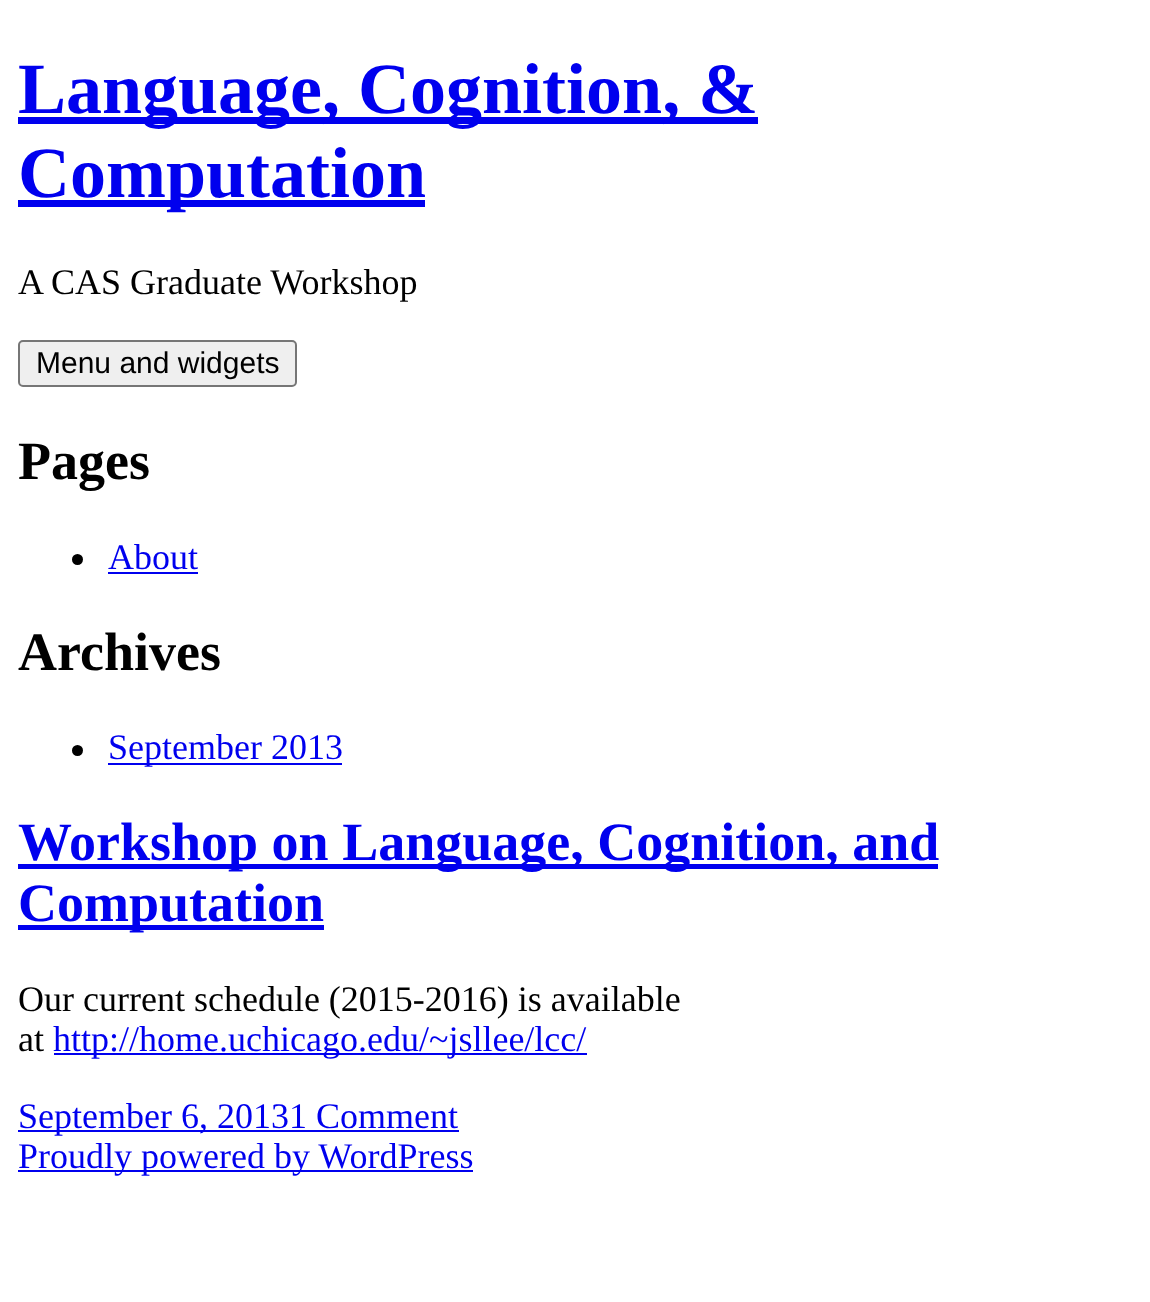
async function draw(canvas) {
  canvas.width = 1150;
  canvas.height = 1302;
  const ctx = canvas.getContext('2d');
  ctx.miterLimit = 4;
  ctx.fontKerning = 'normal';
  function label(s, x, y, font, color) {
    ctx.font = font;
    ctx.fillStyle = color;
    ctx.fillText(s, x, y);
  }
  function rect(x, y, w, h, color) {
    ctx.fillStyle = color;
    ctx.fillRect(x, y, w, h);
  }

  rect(0, 0, 1150, 1302, '#fff');
  rect(18, 117, 740, 7, '#00e');
  label('Language, Cognition, &', 18, 113, 'bold 72px Liberation Serif', '#00e');
  rect(18, 200, 407, 7, '#00e');
  label('Computation', 18, 197, 'bold 72px Liberation Serif', '#00e');
  label('A CAS Graduate Workshop', 18, 294, '36px Liberation Serif', '#000');
  ctx.fillStyle = '#efefef';
  ctx.beginPath();
  ctx.roundRect(19, 341, 277, 45, 4);
  ctx.fill();
  ctx.strokeStyle = '#767676';
  ctx.lineWidth = 2;
  ctx.stroke();
  label('Menu and widgets', 36, 373, '30px Liberation Sans', '#000');
  label('Pages', 18, 479, 'bold 54px Liberation Serif', '#000');
  ctx.beginPath();
  ctx.arc(77.5, 559.5, 5.5, 0, 2 * Math.PI);
  ctx.fill();
  label('About', 108, 569, '36px Liberation Serif', '#00e');
  rect(108, 572, 90, 2, '#00e');
  label('Archives', 18, 670, 'bold 54px Liberation Serif', '#000');
  ctx.beginPath();
  ctx.arc(77.5, 750.5, 5.5, 0, 2 * Math.PI);
  ctx.fill();
  rect(108, 763, 234, 2, '#00e');
  label('September 2013', 108, 759, '36px Liberation Serif', '#00e');
  rect(18, 864, 920, 5, '#00e');
  label('Workshop on Language, Cognition, and', 18, 860, 'bold 54px Liberation Serif', '#00e');
  rect(18, 925, 306, 5, '#00e');
  label('Computation', 18, 921, 'bold 54px Liberation Serif', '#00e');
  label('Our current schedule (2015-2016) is available', 18, 1011, '36px Liberation Serif', '#000');
  label('at', 18, 1051, '36px Liberation Serif', '#000');
  rect(54, 1053, 533, 2, '#00e');
  label('http://home.uchicago.edu/~jsllee/lcc/', 53, 1051, '36px Liberation Serif', '#00e');
  rect(18, 1130, 441, 2, '#00e');
  label('September 6, 20131 Comment', 18, 1128, '36px Liberation Serif', '#00e');
  rect(18, 1170, 455, 2, '#00e');
  label('Proudly powered by WordPress', 18, 1168, '36px Liberation Serif', '#00e');
}

draw(document.querySelector('canvas'));
